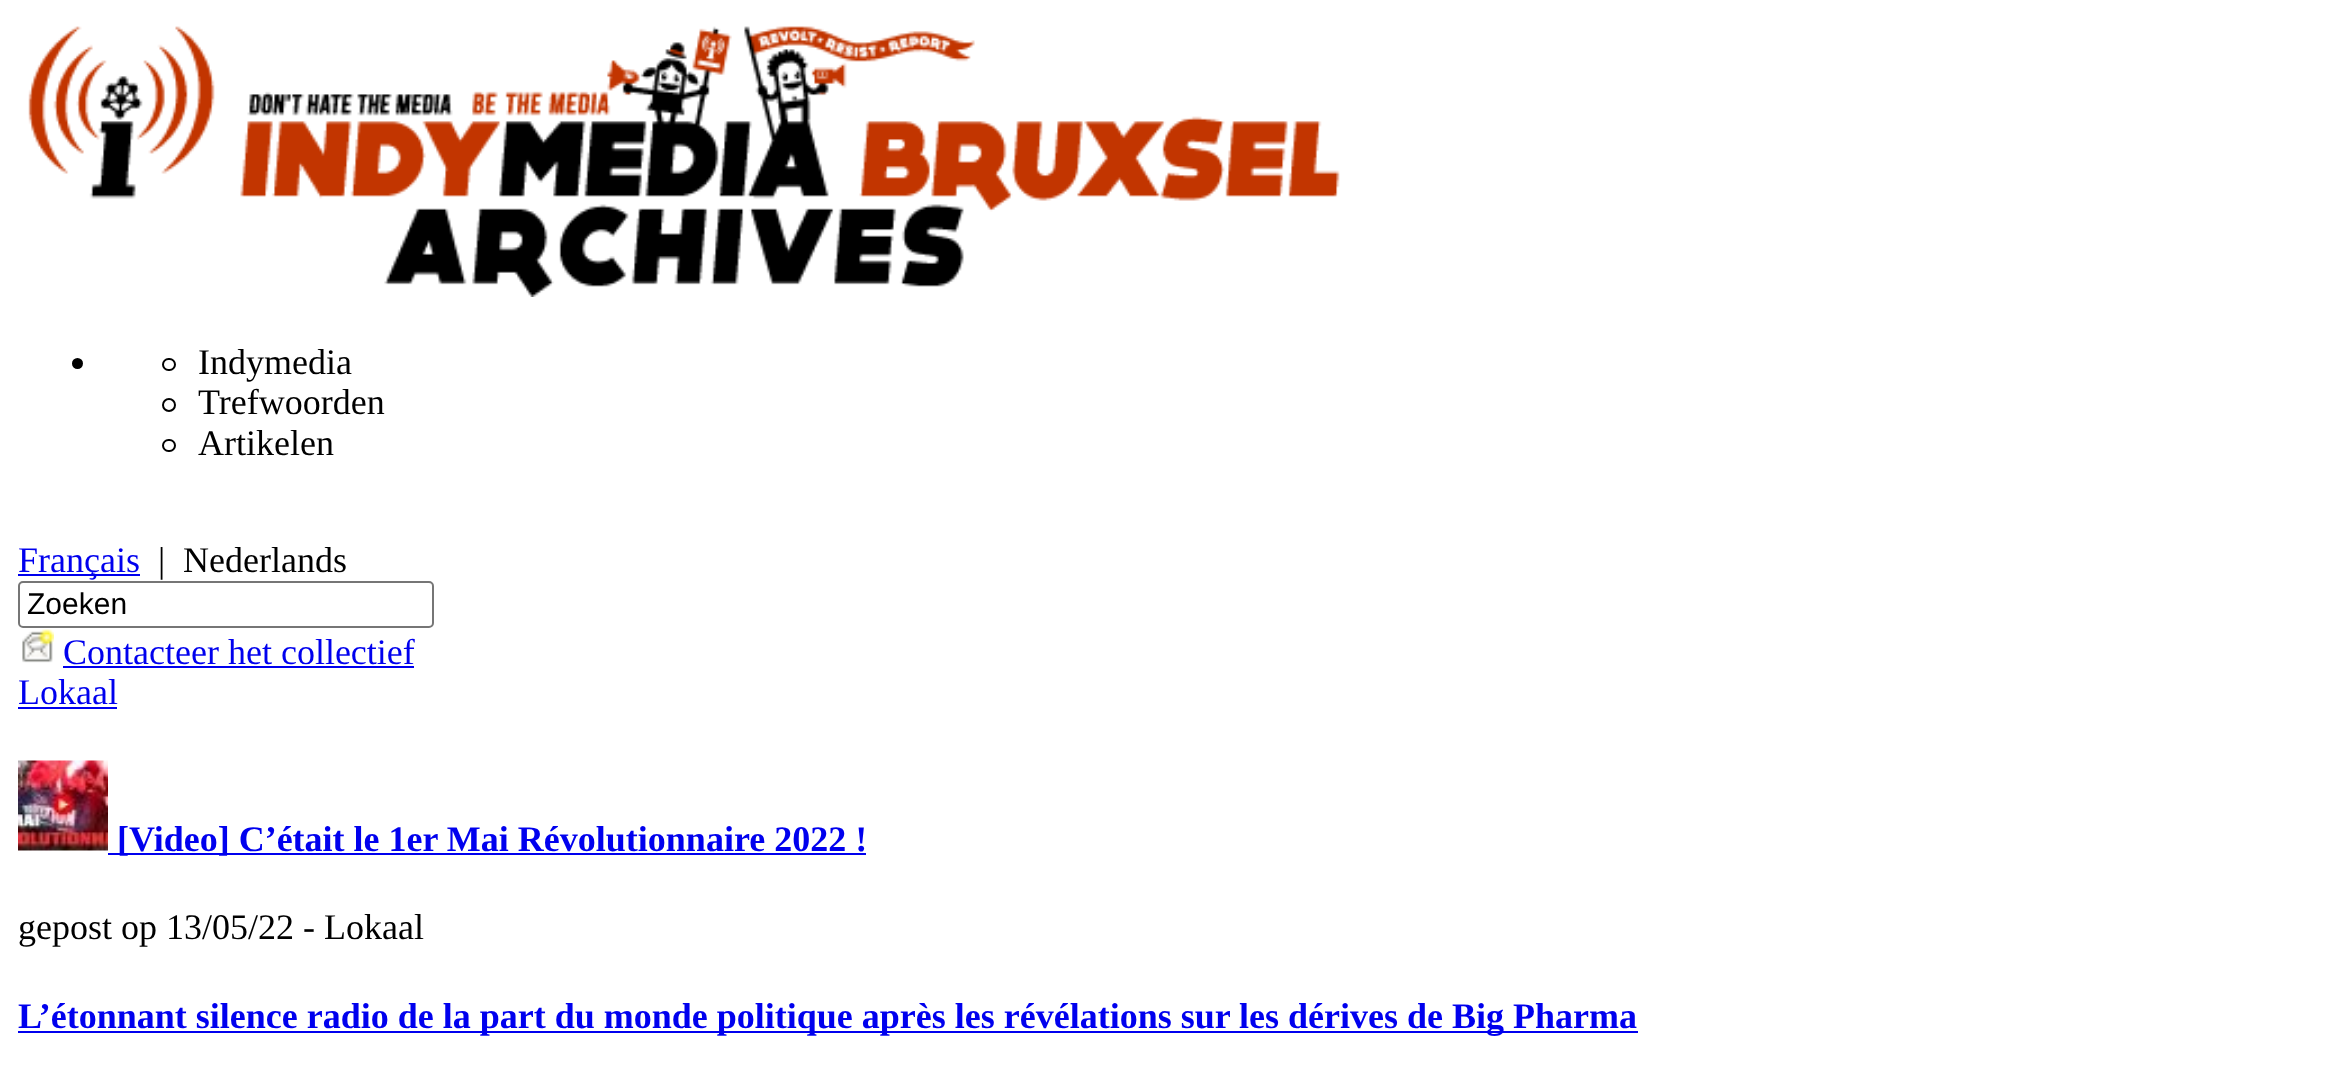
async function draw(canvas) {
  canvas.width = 2327;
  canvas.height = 1075;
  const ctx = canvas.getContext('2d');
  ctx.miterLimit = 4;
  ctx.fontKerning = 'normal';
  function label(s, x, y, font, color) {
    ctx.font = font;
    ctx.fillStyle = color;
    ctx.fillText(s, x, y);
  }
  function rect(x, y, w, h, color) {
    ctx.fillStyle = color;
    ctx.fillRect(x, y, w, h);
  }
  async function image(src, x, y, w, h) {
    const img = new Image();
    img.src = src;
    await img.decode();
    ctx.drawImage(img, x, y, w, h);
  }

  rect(0, 0, 2327, 1075, '#fff');
  await image('assets/img1.png', 28, 26, 1312, 271);
  ctx.fillStyle = '#000';
  ctx.beginPath();
  ctx.arc(77.5, 363.5, 5.5, 0, 2 * Math.PI);
  ctx.fill();
  ctx.beginPath();
  ctx.roundRect(163, 359, 12, 11, 5.5);
  ctx.strokeStyle = '#000';
  ctx.lineWidth = 2;
  ctx.stroke();
  label('Indymedia', 198, 374, '36px Liberation Serif', '#000');
  ctx.beginPath();
  ctx.arc(169, 405, 6, 0, 2 * Math.PI);
  ctx.stroke();
  label('Trefwoorden', 198, 414, '36px Liberation Serif', '#000');
  ctx.beginPath();
  ctx.roundRect(163, 440, 12, 11, 5.5);
  ctx.stroke();
  label('Artikelen', 198, 455, '36px Liberation Serif', '#000');
  rect(18, 574, 122, 2, '#00e');
  label('Français', 18, 572, '36px Liberation Serif', '#00e');
  label('|', 158, 572, '36px Liberation Serif', '#000');
  label('Nederlands', 183, 572, '36px Liberation Serif', '#000');
  ctx.beginPath();
  ctx.roundRect(19, 582, 414, 45, 4);
  ctx.strokeStyle = '#767676';
  ctx.stroke();
  label('Zoeken', 27, 614, '30px Liberation Sans', '#000');
  await image('assets/img2.png', 22, 629, 32, 34);
  label('Contacteer het collectief', 63, 664, '36px Liberation Serif', '#00e');
  rect(63, 666, 351, 2, '#00e');
  label('Lokaal', 18, 704, '36px Liberation Serif', '#00e');
  rect(18, 707, 99, 2, '#00e');
  await image('assets/img3.png', 18, 760, 90, 91);
  rect(108, 853, 758, 2, '#00e');
  label('[Video] C’était le 1er Mai Révolutionnaire 2022 !', 117, 851, 'bold 36px Liberation Serif', '#00e');
  label('gepost op 13/05/22 - Lokaal', 18, 939, '36px Liberation Serif', '#000');
  rect(18, 1031, 1620, 2, '#00e');
  label('L’étonnant silence radio de la part du monde politique après les révélations sur les dérives de Big Pharma', 18, 1028, 'bold 36px Liberation Serif', '#00e');
}

draw(document.querySelector('canvas'));
